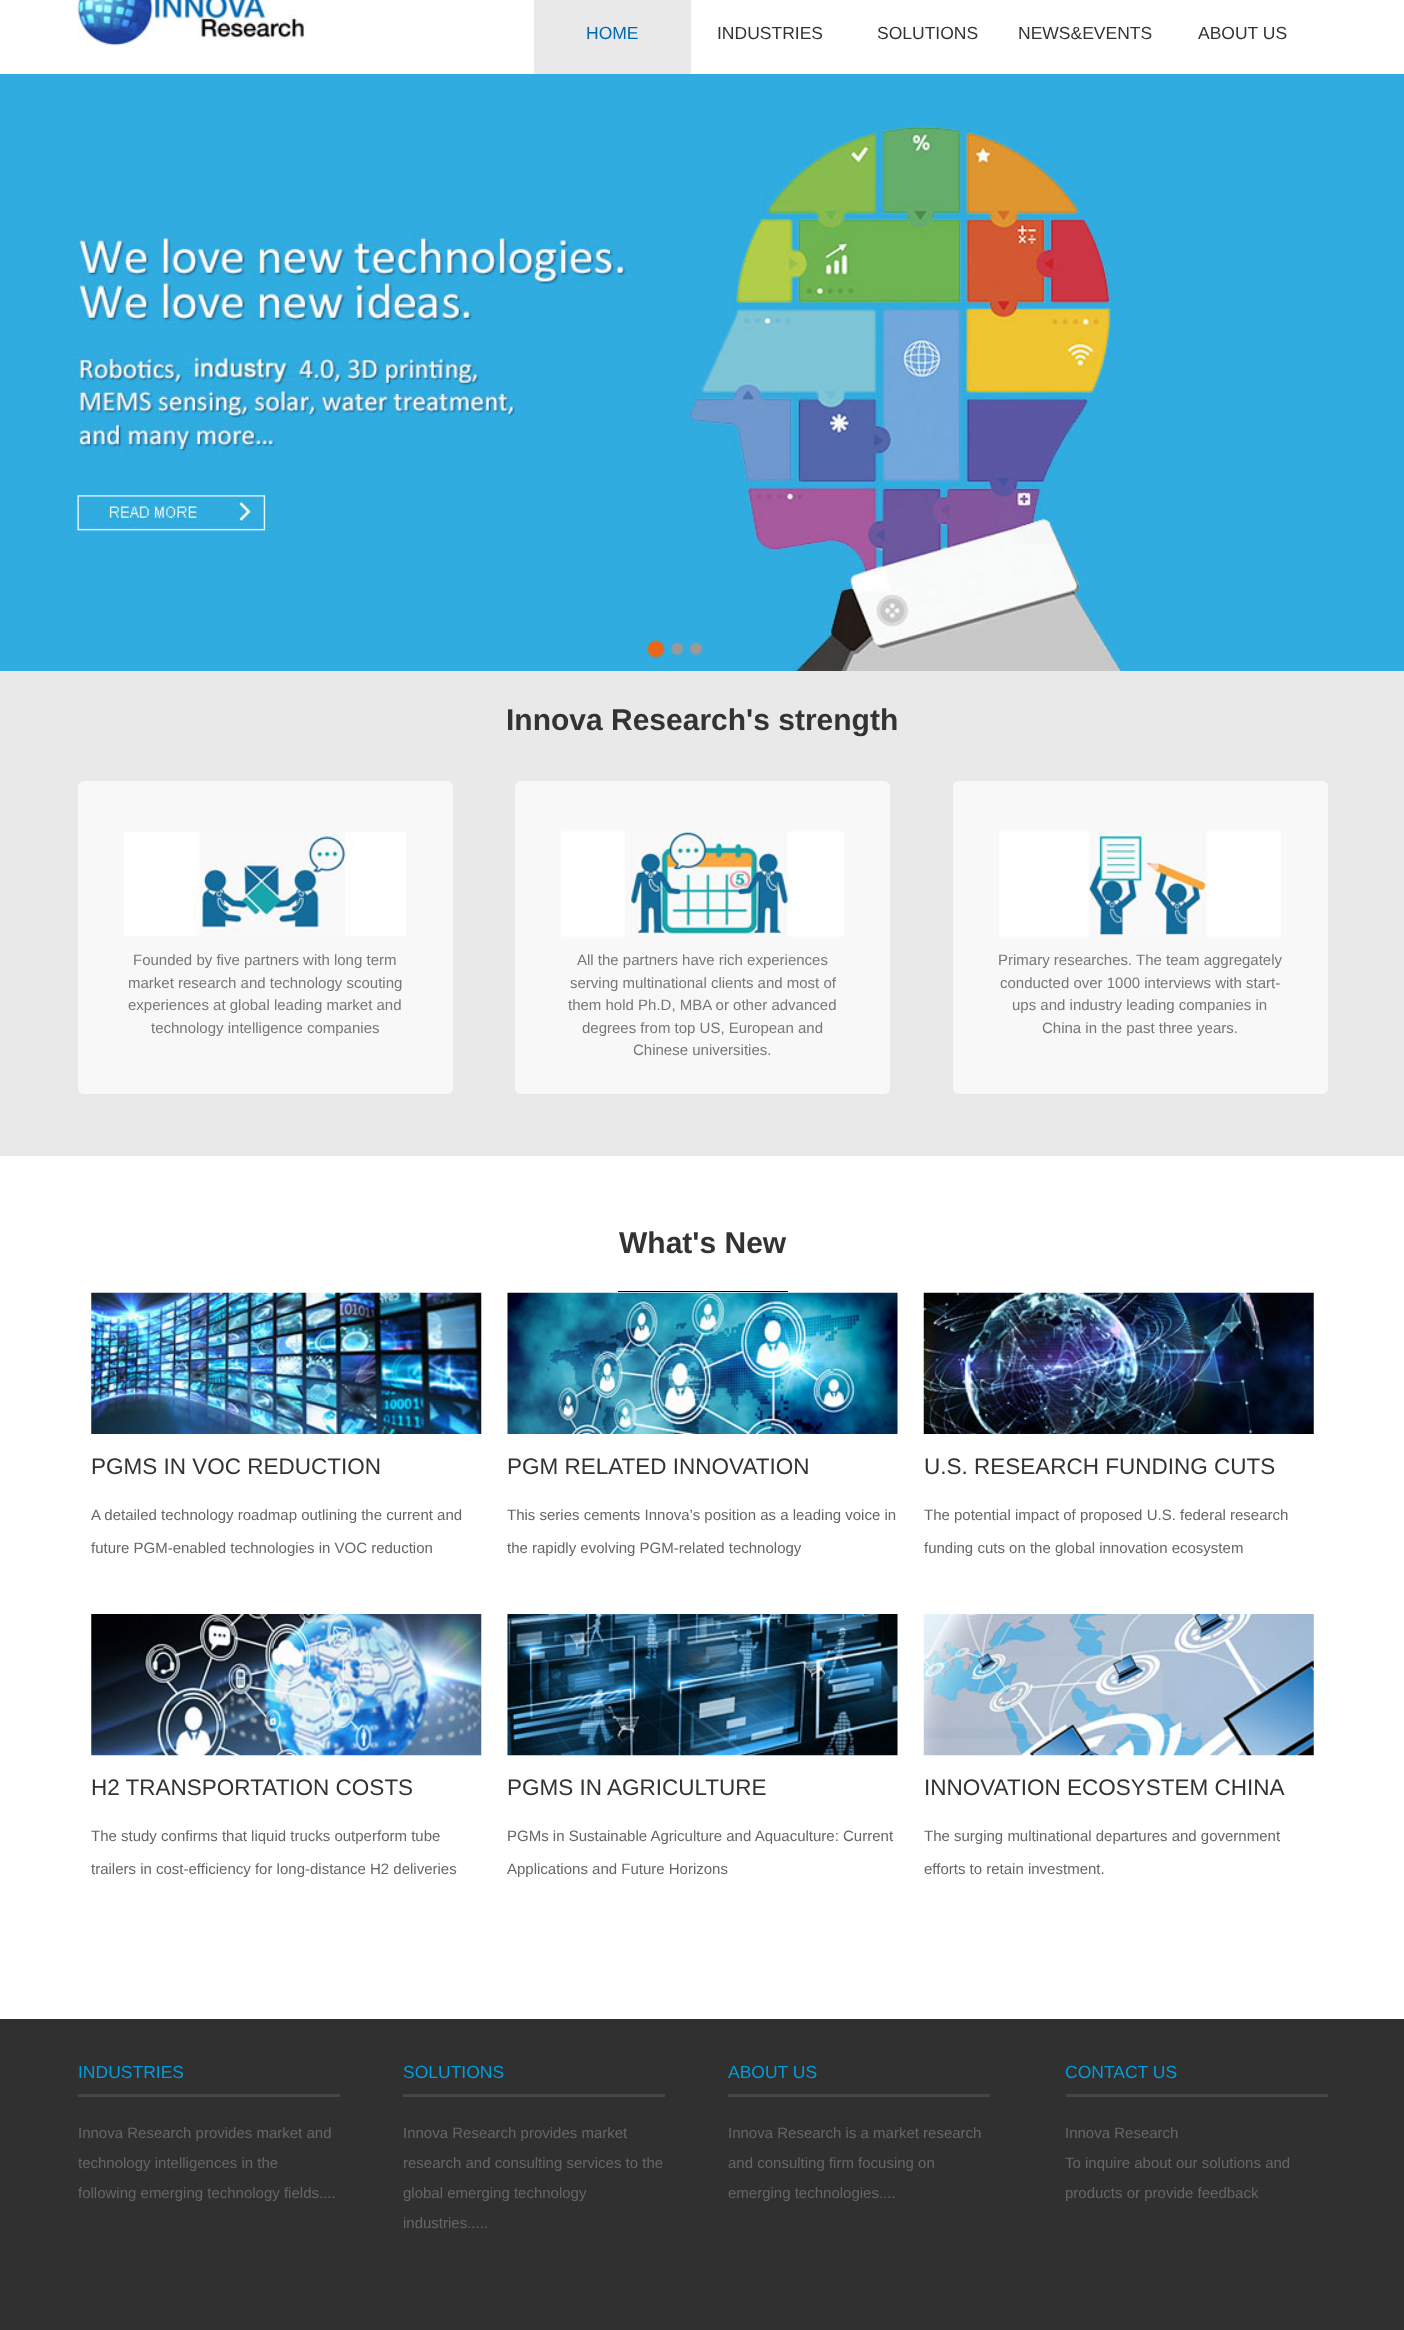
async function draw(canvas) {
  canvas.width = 1404;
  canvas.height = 2330;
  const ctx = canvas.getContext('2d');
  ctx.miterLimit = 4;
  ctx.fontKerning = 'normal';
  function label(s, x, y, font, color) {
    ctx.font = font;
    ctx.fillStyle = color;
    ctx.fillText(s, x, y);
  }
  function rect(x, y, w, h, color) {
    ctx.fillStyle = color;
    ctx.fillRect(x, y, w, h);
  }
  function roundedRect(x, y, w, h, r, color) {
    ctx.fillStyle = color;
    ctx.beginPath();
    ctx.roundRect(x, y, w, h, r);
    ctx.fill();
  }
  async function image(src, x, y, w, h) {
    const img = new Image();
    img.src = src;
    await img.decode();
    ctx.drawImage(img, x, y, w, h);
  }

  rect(0, 0, 1404, 2330, '#fff');
  await image('assets/img1.png', 77, 0, 230, 46);
  rect(534, 0, 157, 74, '#e9e9e9');
  label('HOME', 586, 39, '17.5px Liberation Sans', '#0067b1');
  label('INDUSTRIES', 717, 39, '17.5px Liberation Sans', '#333');
  label('SOLUTIONS', 877, 39, '17.5px Liberation Sans', '#333');
  label('NEWS&EVENTS', 1018, 39, '17.5px Liberation Sans', '#333');
  label('ABOUT US', 1198, 39, '17.5px Liberation Sans', '#333');
  await image('assets/img2.png', 0, 74, 1404, 597);
  await image('assets/img3.png', 647, 640, 18, 18);
  await image('assets/img4.png', 671, 642, 13, 14);
  await image('assets/img5.png', 690, 642, 13, 14);
  rect(0, 671, 1404, 485, '#e9e9e9');
  label('Innova Research\'s strength', 506, 730, 'bold 30px Liberation Sans', '#333');
  roundedRect(78, 781, 375, 313, 6, '#f8f8f8');
  await image('assets/img6.png', 124, 832, 282, 104);
  label('Founded by five partners with long term', 133, 965, '15px Liberation Sans', '#777');
  label('market research and technology scouting', 128, 988, '15px Liberation Sans', '#777');
  label('experiences at global leading market and', 128, 1010, '15px Liberation Sans', '#777');
  label('technology intelligence companies', 151, 1033, '15px Liberation Sans', '#777');
  roundedRect(515, 781, 375, 313, 6, '#f8f8f8');
  await image('assets/img7.png', 561, 831, 283, 106);
  label('All the partners have rich experiences', 577, 965, '15px Liberation Sans', '#777');
  label('serving multinational clients and most of', 570, 988, '15px Liberation Sans', '#777');
  label('them hold Ph.D, MBA or other advanced', 568, 1010, '15px Liberation Sans', '#777');
  label('degrees from top US, European and', 582, 1033, '15px Liberation Sans', '#777');
  label('Chinese universities.', 633, 1055, '15px Liberation Sans', '#777');
  roundedRect(953, 781, 375, 313, 6, '#f8f8f8');
  await image('assets/img8.png', 999, 831, 282, 106);
  label('Primary researches. The team aggregately', 998, 965, '15px Liberation Sans', '#777');
  label('conducted over 1000 interviews with start-', 1000, 988, '15px Liberation Sans', '#777');
  label('ups and industry leading companies in', 1012, 1010, '15px Liberation Sans', '#777');
  label('China in the past three years.', 1042, 1033, '15px Liberation Sans', '#777');
  label('What\'s New', 619, 1253, 'bold 30px Liberation Sans', '#333');
  rect(618, 1291, 170, 1, '#000');
  await image('assets/img9.png', 91, 1292, 391, 142);
  label('PGMS IN VOC REDUCTION', 91, 1474, '22.5px Liberation Sans', '#333');
  label('A detailed technology roadmap outlining the current and', 91, 1520, '15px Liberation Sans', '#666');
  label('future PGM-enabled technologies in VOC reduction', 91, 1553, '15px Liberation Sans', '#666');
  await image('assets/img10.png', 507, 1292, 391, 142);
  label('PGM RELATED INNOVATION', 507, 1474, '22.5px Liberation Sans', '#333');
  label('This series cements Innova’s position as a leading voice in', 507, 1520, '15px Liberation Sans', '#666');
  label('the rapidly evolving PGM-related technology', 507, 1553, '15px Liberation Sans', '#666');
  await image('assets/img11.png', 923, 1292, 391, 142);
  label('U.S. RESEARCH FUNDING CUTS', 924, 1474, '22.5px Liberation Sans', '#333');
  label('The potential impact of proposed U.S. federal research', 924, 1520, '15px Liberation Sans', '#666');
  label('funding cuts on the global innovation ecosystem', 924, 1553, '15px Liberation Sans', '#666');
  await image('assets/img12.png', 91, 1614, 391, 142);
  label('H2 TRANSPORTATION COSTS', 91, 1795, '22.5px Liberation Sans', '#333');
  label('The study confirms that liquid trucks outperform tube', 91, 1841, '15px Liberation Sans', '#666');
  label('trailers in cost-efficiency for long-distance H2 deliveries', 91, 1874, '15px Liberation Sans', '#666');
  await image('assets/img13.png', 507, 1614, 391, 142);
  label('PGMS IN AGRICULTURE', 507, 1795, '22.5px Liberation Sans', '#333');
  label('PGMs in Sustainable Agriculture and Aquaculture: Current', 507, 1841, '15px Liberation Sans', '#666');
  label('Applications and Future Horizons', 507, 1874, '15px Liberation Sans', '#666');
  await image('assets/img14.png', 923, 1614, 391, 142);
  label('INNOVATION ECOSYSTEM CHINA', 924, 1795, '22.5px Liberation Sans', '#333');
  label('The surging multinational departures and government', 924, 1841, '15px Liberation Sans', '#666');
  label('efforts to retain investment.', 924, 1874, '15px Liberation Sans', '#666');
  rect(0, 2019, 1404, 311, '#303030');
  label('INDUSTRIES', 78, 2078, '17.5px Liberation Sans', '#009ddc');
  rect(78, 2094, 262, 3, '#464646');
  label('Innova Research provides market and', 78, 2138, '15px Liberation Sans', '#666');
  label('technology intelligences in the', 78, 2168, '15px Liberation Sans', '#666');
  label('following emerging technology fields....', 78, 2198, '15px Liberation Sans', '#666');
  label('SOLUTIONS', 403, 2078, '17.5px Liberation Sans', '#009ddc');
  rect(403, 2094, 262, 3, '#464646');
  label('Innova Research provides market', 403, 2138, '15px Liberation Sans', '#666');
  label('research and consulting services to the', 403, 2168, '15px Liberation Sans', '#666');
  label('global emerging technology', 403, 2198, '15px Liberation Sans', '#666');
  label('industries.....', 403, 2228, '15px Liberation Sans', '#666');
  label('ABOUT US', 728, 2078, '17.5px Liberation Sans', '#009ddc');
  rect(728, 2094, 262, 3, '#464646');
  label('Innova Research is a market research', 728, 2138, '15px Liberation Sans', '#666');
  label('and consulting firm focusing on', 728, 2168, '15px Liberation Sans', '#666');
  label('emerging technologies....', 728, 2198, '15px Liberation Sans', '#666');
  label('CONTACT US', 1065, 2078, '17.5px Liberation Sans', '#009ddc');
  rect(1066, 2094, 262, 3, '#464646');
  label('Innova Research', 1065, 2138, '15px Liberation Sans', '#666');
  label('To inquire about our solutions and', 1065, 2168, '15px Liberation Sans', '#666');
  label('products or provide feedback', 1065, 2198, '15px Liberation Sans', '#666');
}

draw(document.querySelector('canvas'));
